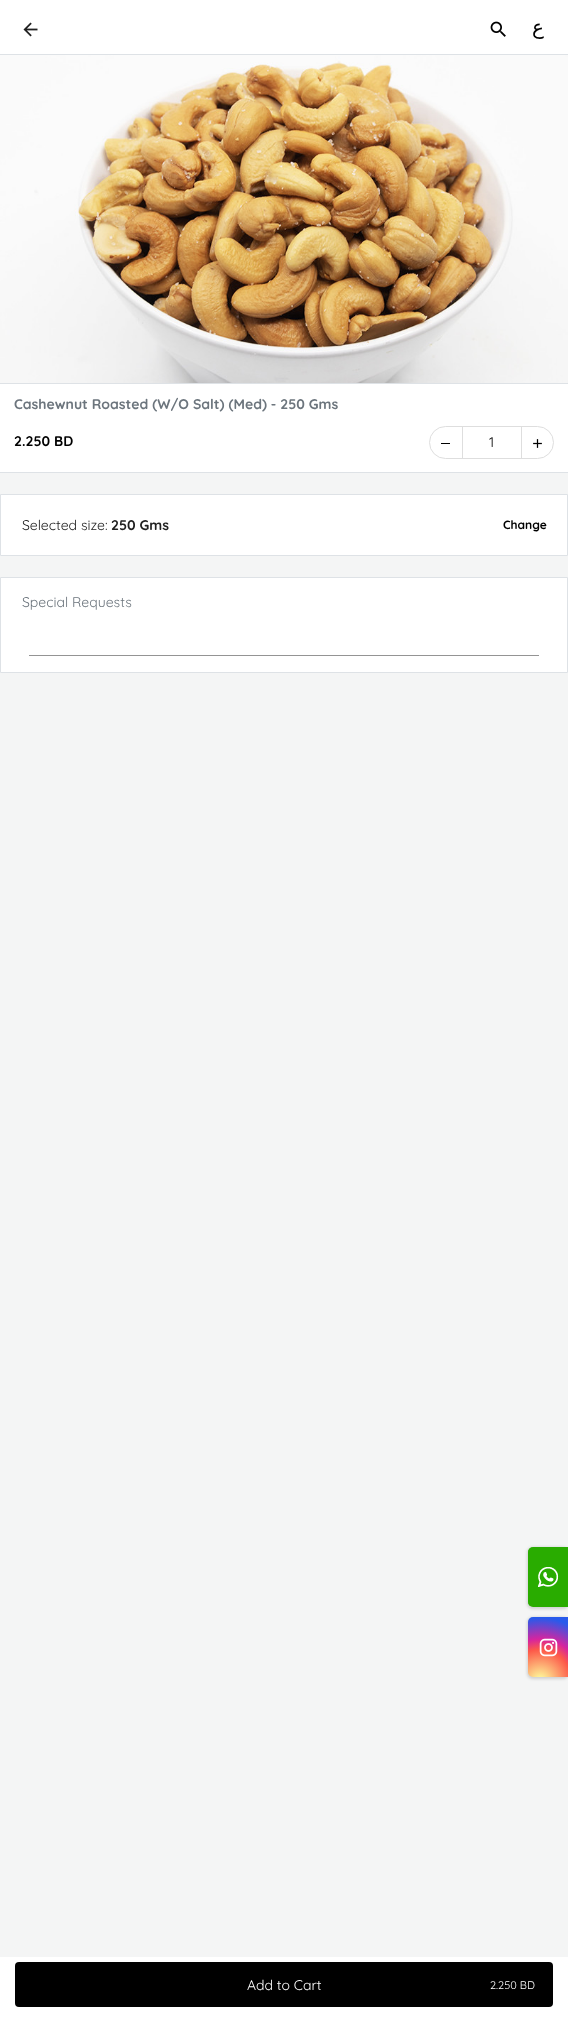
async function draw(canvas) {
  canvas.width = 568;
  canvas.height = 2017;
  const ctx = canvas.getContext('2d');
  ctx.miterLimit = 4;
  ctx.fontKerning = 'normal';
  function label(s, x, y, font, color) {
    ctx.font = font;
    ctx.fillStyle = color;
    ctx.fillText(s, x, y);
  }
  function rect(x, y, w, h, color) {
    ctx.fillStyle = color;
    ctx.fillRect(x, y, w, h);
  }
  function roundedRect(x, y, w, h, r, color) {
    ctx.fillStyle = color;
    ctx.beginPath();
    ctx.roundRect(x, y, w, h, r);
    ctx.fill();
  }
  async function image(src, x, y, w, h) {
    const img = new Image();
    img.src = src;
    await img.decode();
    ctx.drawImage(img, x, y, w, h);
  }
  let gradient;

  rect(0, 0, 568, 2017, '#f4f5f5');
  rect(0, 0, 568, 54, '#fff');
  rect(0, 54, 568, 1, '#dee2e6');
  await image('assets/img1.png', 23, 22, 15, 15);
  await image('assets/img2.png', 490, 21, 16, 16);
  ctx.direction = 'rtl';
  label('ع', 544, 34, '20px DejaVu Sans', '#000');
  await image('assets/img3.png', 0, 55, 568, 328);
  rect(0, 384, 568, 88, '#fff');
  rect(0, 383, 568, 1, '#dee2e6');
  rect(0, 472, 568, 1, '#dee2e6');
  ctx.direction = 'ltr';
  label('Cashewnut Roasted (W/O Salt) (Med) - 250 Gms', 14, 409, '300 14px "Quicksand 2"', '#6c757d');
  label('2.250 BD', 14, 446, '300 14px "Quicksand 2"', '#000');
  ctx.beginPath();
  ctx.roundRect(429.5, 426.5, 124, 32, 16);
  ctx.strokeStyle = '#dedede';
  ctx.stroke();
  rect(441, 443, 9, 1, '#000');
  rect(521, 426, 1, 32, '#dedede');
  rect(462, 426, 1, 32, '#dedede');
  label('1', 489, 447, '300 14px Quicksand', '#000');
  await image('assets/img4.png', 533, 439, 9, 9);
  ctx.fillStyle = '#fff';
  ctx.beginPath();
  ctx.rect(0.5, 494.5, 567, 61);
  ctx.fill();
  ctx.strokeStyle = '#dee2e6';
  ctx.stroke();
  label('Selected size:', 22, 530, '300 14px Quicksand', '#212121');
  label('250 Gms', 111, 530, '300 14px "Quicksand 2"', '#212121');
  label('Change', 503, 529, '300 12px "Quicksand 2"', '#000');
  ctx.fillStyle = '#fff';
  ctx.beginPath();
  ctx.rect(0.5, 577.5, 567, 95);
  ctx.fill();
  ctx.stroke();
  label('Special Requests', 22, 607, '300 14px Quicksand', '#6c757d');
  rect(29, 655, 510, 1, '#949494');
  rect(0, 1957, 568, 60, '#fff');
  roundedRect(15, 1962, 538, 45, 4, '#000');
  label('Add to Cart', 247, 1990, '300 14px Quicksand', '#fff');
  label('2.250 BD', 490, 1989, '300 11px Quicksand', '#fff');
  ctx.fillStyle = '#00000026';
  ctx.filter = 'blur(1.5px)';
  ctx.beginPath();
  ctx.roundRect(527, 1547, 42, 62, 6);
  ctx.fill();
  ctx.filter = 'none';
  ctx.fillStyle = '#29ac00';
  ctx.beginPath();
  ctx.roundRect(528, 1547, 40, 60, [5, 0, 0, 5]);
  ctx.fill();
  await image('assets/img5.png', 528, 1548, 31, 58);
  ctx.fillStyle = '#00000026';
  ctx.filter = 'blur(1.5px)';
  ctx.beginPath();
  ctx.roundRect(527, 1617, 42, 62, 6);
  ctx.fill();
  ctx.filter = 'none';
  gradient = ctx.createRadialGradient(540, 1681, 0, 540, 1681, 70);
  gradient.addColorStop(0, '#fdf497');
  gradient.addColorStop(0.05, '#fdf497');
  gradient.addColorStop(0.45, '#fd5949');
  gradient.addColorStop(0.6, '#d6249f');
  gradient.addColorStop(0.9, '#285aeb');
  ctx.fillStyle = gradient;
  ctx.beginPath();
  ctx.roundRect(528, 1617, 40, 60, [5, 0, 0, 5]);
  ctx.fill();
  await image('assets/img6.png', 539, 1638, 19, 19);
}

draw(document.querySelector('canvas'));
